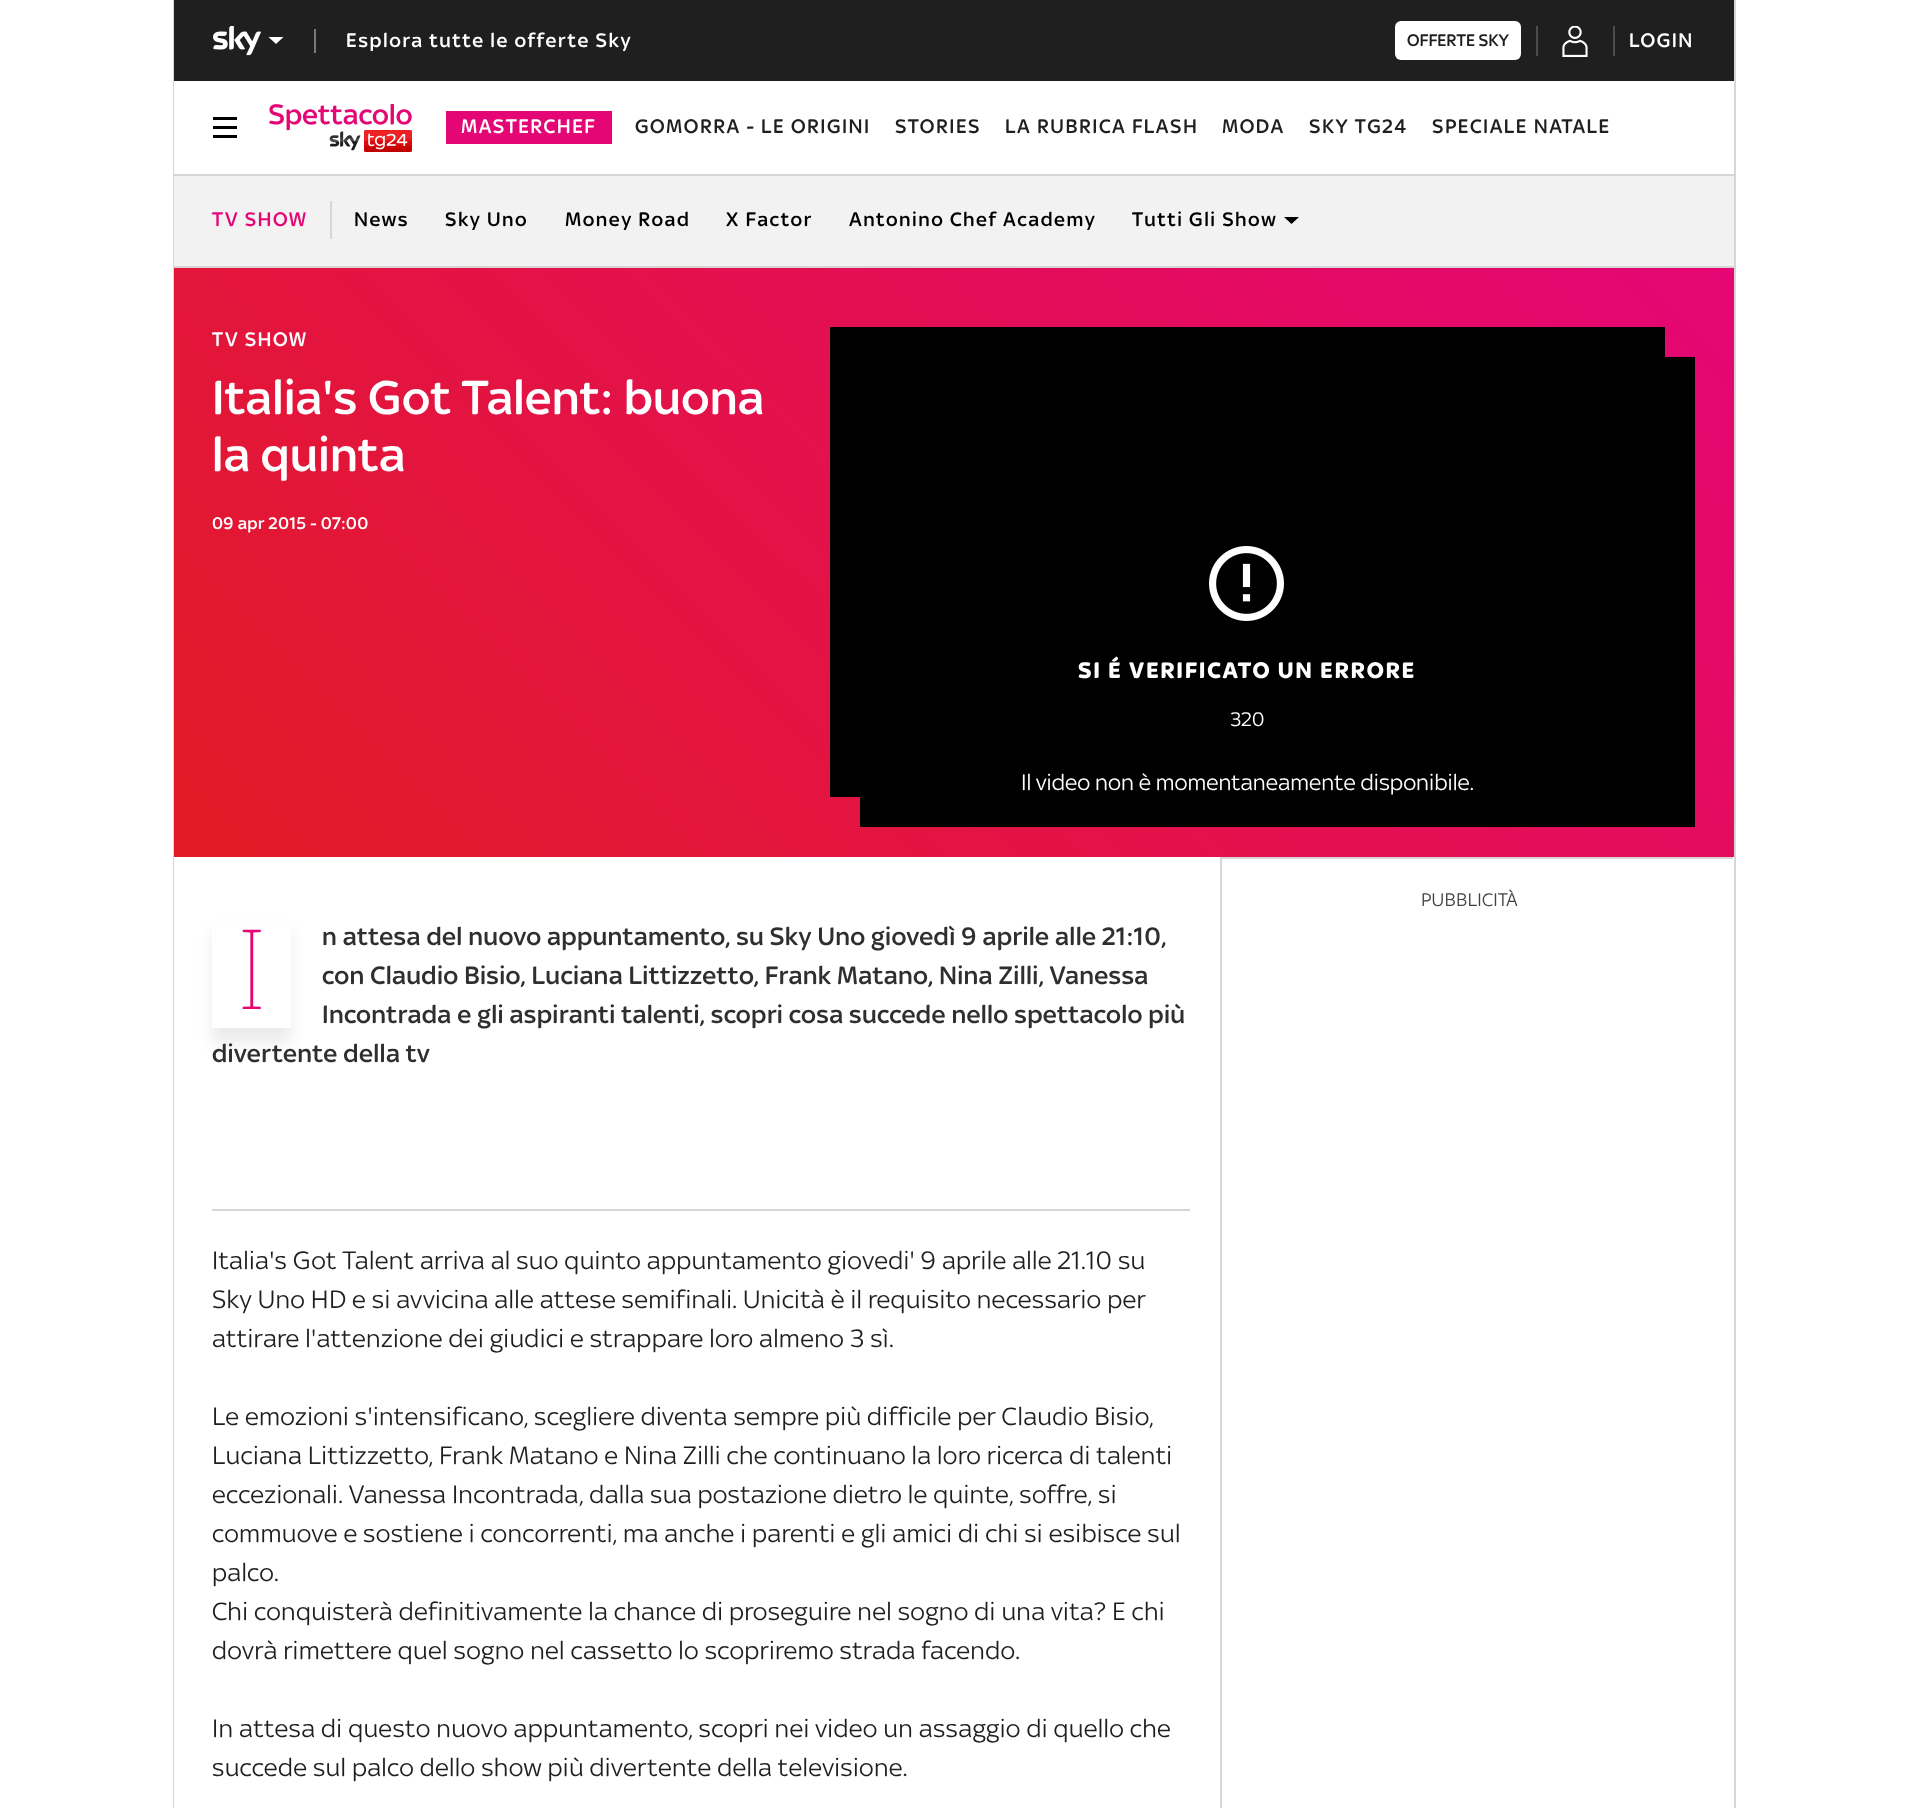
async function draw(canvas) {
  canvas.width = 1906;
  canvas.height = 1808;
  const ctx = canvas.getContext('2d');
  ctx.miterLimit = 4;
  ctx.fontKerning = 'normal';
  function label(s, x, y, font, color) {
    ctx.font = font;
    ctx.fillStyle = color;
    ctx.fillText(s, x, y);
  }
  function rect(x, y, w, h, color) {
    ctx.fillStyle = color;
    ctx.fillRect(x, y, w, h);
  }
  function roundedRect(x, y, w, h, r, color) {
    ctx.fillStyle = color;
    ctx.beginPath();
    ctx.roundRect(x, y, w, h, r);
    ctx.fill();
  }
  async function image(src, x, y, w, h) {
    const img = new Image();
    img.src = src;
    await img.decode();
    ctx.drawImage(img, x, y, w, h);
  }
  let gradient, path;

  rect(0, 0, 1906, 1808, '#fff');
  ctx.fillStyle = '#d6d6d6';
  path = new Path2D('M173 0V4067H1733V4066H174V0Z');
  ctx.fill(path);
  path = new Path2D('M176 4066V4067H1736V0H1734V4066Z');
  ctx.fill(path);
  rect(174, 0, 1560, 81, '#1f1f1f');
  await image('assets/img1.png', 213, 26, 48, 30);
  ctx.fillStyle = '#fff';
  path = new Path2D('M268.5 37H283.5L276 44Z');
  ctx.fill(path, 'evenodd');
  rect(314, 29, 2, 24, '#797979');
  ctx.letterSpacing = '1.5px';
  label('Esplora tutte le offerte Sky', 346, 47, '500 21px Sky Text', '#fff');
  roundedRect(1395, 21, 126, 39, 6, '#fff');
  ctx.letterSpacing = '0px';
  label('OFFERTE SKY', 1407, 46, '500 18px Sky Text', '#1f1f1f');
  rect(1536, 26, 2, 30, '#4c4c4c');
  await image('assets/img2.png', 1562, 26, 26, 31);
  rect(1613, 26, 2, 30, '#4c4c4c');
  ctx.letterSpacing = '1.5px';
  label('LOGIN', 1629, 47, '500 21px Sky Text', '#fff');
  rect(174, 174, 1560, 2, '#d6d6d6');
  await image('assets/img3.png', 213, 117, 24, 21);
  await image('assets/img4.png', 269, 104, 143, 48);
  rect(446, 111, 166, 33, '#e50675');
  label('MASTERCHEF', 461, 133, '500 21px Sky Text', '#fff');
  label('GOMORRA - LE ORIGINI', 635, 133, '500 21px Sky Text', '#1f1f1f');
  label('STORIES', 895, 133, '500 21px Sky Text', '#1f1f1f');
  label('LA RUBRICA FLASH', 1005, 133, '500 21px Sky Text', '#1f1f1f');
  label('MODA', 1222, 133, '500 21px Sky Text', '#1f1f1f');
  label('SKY TG24', 1309, 133, '500 21px Sky Text', '#1f1f1f');
  label('SPECIALE NATALE', 1432, 133, '500 21px Sky Text', '#1f1f1f');
  rect(174, 176, 1560, 90, '#f2f2f2');
  rect(174, 266, 1560, 2, '#d6d6d6');
  rect(330, 201, 2, 38, '#d6d6d6');
  label('TV SHOW', 212, 226, '500 21px Sky Text', '#e50675');
  label('News', 354, 226, '500 21px Sky Text', '#000');
  label('Sky Uno', 445, 226, '500 21px Sky Text', '#000');
  label('Money Road', 565, 226, '500 21px Sky Text', '#000');
  label('X Factor', 726, 226, '500 21px Sky Text', '#000');
  label('Antonino Chef Academy', 849, 226, '500 21px Sky Text', '#000');
  label('Tutti Gli Show', 1132, 226, '500 21px Sky Text', '#000');
  path = new Path2D('M1284 217H1299L1291.5 224Z');
  ctx.fill(path, 'evenodd');
  gradient = ctx.createLinearGradient(1491, 24, 417, 1099);
  gradient.addColorStop(0, '#e50675');
  gradient.addColorStop(1, '#e21b25');
  ctx.fillStyle = gradient;
  ctx.fillRect(174, 268, 1560, 589);
  label('TV SHOW', 212, 346, '500 21px Sky Text', '#fff');
  ctx.letterSpacing = '0.3px';
  label('Italia\'s Got Talent: buona', 212, 414, '500 51px Sky Text', '#fff');
  label('la quinta', 212, 471, '500 51px Sky Text', '#fff');
  label('09 apr 2015 - 07:00', 212, 529, '500 18px Sky Text', '#fff');
  ctx.fillStyle = '#000';
  path = new Path2D('M860 796V827H1695V357H1665V796Z');
  ctx.fill(path);
  rect(830, 327, 835, 470, '#000');
  await image('assets/img5.png', 1209, 546, 75, 75);
  ctx.letterSpacing = '1.7px';
  label('SI É VERIFICATO UN ERRORE', 1078, 678, 'bold 24px Sky Text', '#fff');
  ctx.letterSpacing = '0px';
  label('320', 1230, 726, '21px Sky Text', '#fff');
  label('Il video non è momentaneamente disponibile.', 1021, 790, '24px Sky Text', '#fff');
  rect(1220, 857, 513, 2, '#d6d6d6');
  rect(1220, 857, 2, 951, '#d6d6d6');
  ctx.letterSpacing = '0.3px';
  label('PUBBLICITÀ', 1421, 906, '19.5px Sky Text', '#414141');
  rect(212, 1209, 978, 2, '#d6d6d6');
  ctx.fillStyle = '#00000014';
  ctx.filter = 'blur(7.5px)';
  ctx.beginPath();
  ctx.rect(212, 932, 79, 111);
  ctx.fill();
  ctx.filter = 'none';
  rect(212, 923, 79, 105, '#fff');
  label('I', 236, 1009, '100 111px Noto Sans', '#e50675');
  label('n attesa del nuovo appuntamento, su Sky Uno giovedì 9 aprile alle 21:10,', 322, 945, '500 27px Sky Text', '#2f2f2f');
  label('con Claudio Bisio, Luciana Littizzetto, Frank Matano, Nina Zilli, Vanessa', 322, 984, '500 27px Sky Text', '#2f2f2f');
  label('Incontrada e gli aspiranti talenti, scopri cosa succede nello spettacolo più', 322, 1023, '500 27px Sky Text', '#2f2f2f');
  label('divertente della tv', 212, 1062, '500 27px Sky Text', '#2f2f2f');
  label('Italia\'s Got Talent arriva al suo quinto appuntamento giovedi\' 9 aprile alle 21.10 su', 212, 1269, '27px Sky Text', '#1f1f1f');
  label('Sky Uno HD e si avvicina alle attese semifinali. Unicità è il requisito necessario per', 212, 1308, '27px Sky Text', '#1f1f1f');
  label('attirare l\'attenzione dei giudici e strappare loro almeno 3 sì.', 212, 1347, '27px Sky Text', '#1f1f1f');
  label('Le emozioni s\'intensificano, scegliere diventa sempre più difficile per Claudio Bisio,', 212, 1425, '27px Sky Text', '#1f1f1f');
  label('Luciana Littizzetto, Frank Matano e Nina Zilli che continuano la loro ricerca di talenti', 212, 1464, '27px Sky Text', '#1f1f1f');
  label('eccezionali. Vanessa Incontrada, dalla sua postazione dietro le quinte, soffre, si', 212, 1503, '27px Sky Text', '#1f1f1f');
  label('commuove e sostiene i concorrenti, ma anche i parenti e gli amici di chi si esibisce sul', 212, 1542, '27px Sky Text', '#1f1f1f');
  label('palco.', 212, 1581, '27px Sky Text', '#1f1f1f');
  label('Chi conquisterà definitivamente la chance di proseguire nel sogno di una vita? E chi', 212, 1620, '27px Sky Text', '#1f1f1f');
  label('dovrà rimettere quel sogno nel cassetto lo scopriremo strada facendo.', 212, 1659, '27px Sky Text', '#1f1f1f');
  label('In attesa di questo nuovo appuntamento, scopri nei video un assaggio di quello che', 212, 1737, '27px Sky Text', '#1f1f1f');
  label('succede sul palco dello show più divertente della televisione.', 212, 1776, '27px Sky Text', '#1f1f1f');
}

draw(document.querySelector('canvas'));
